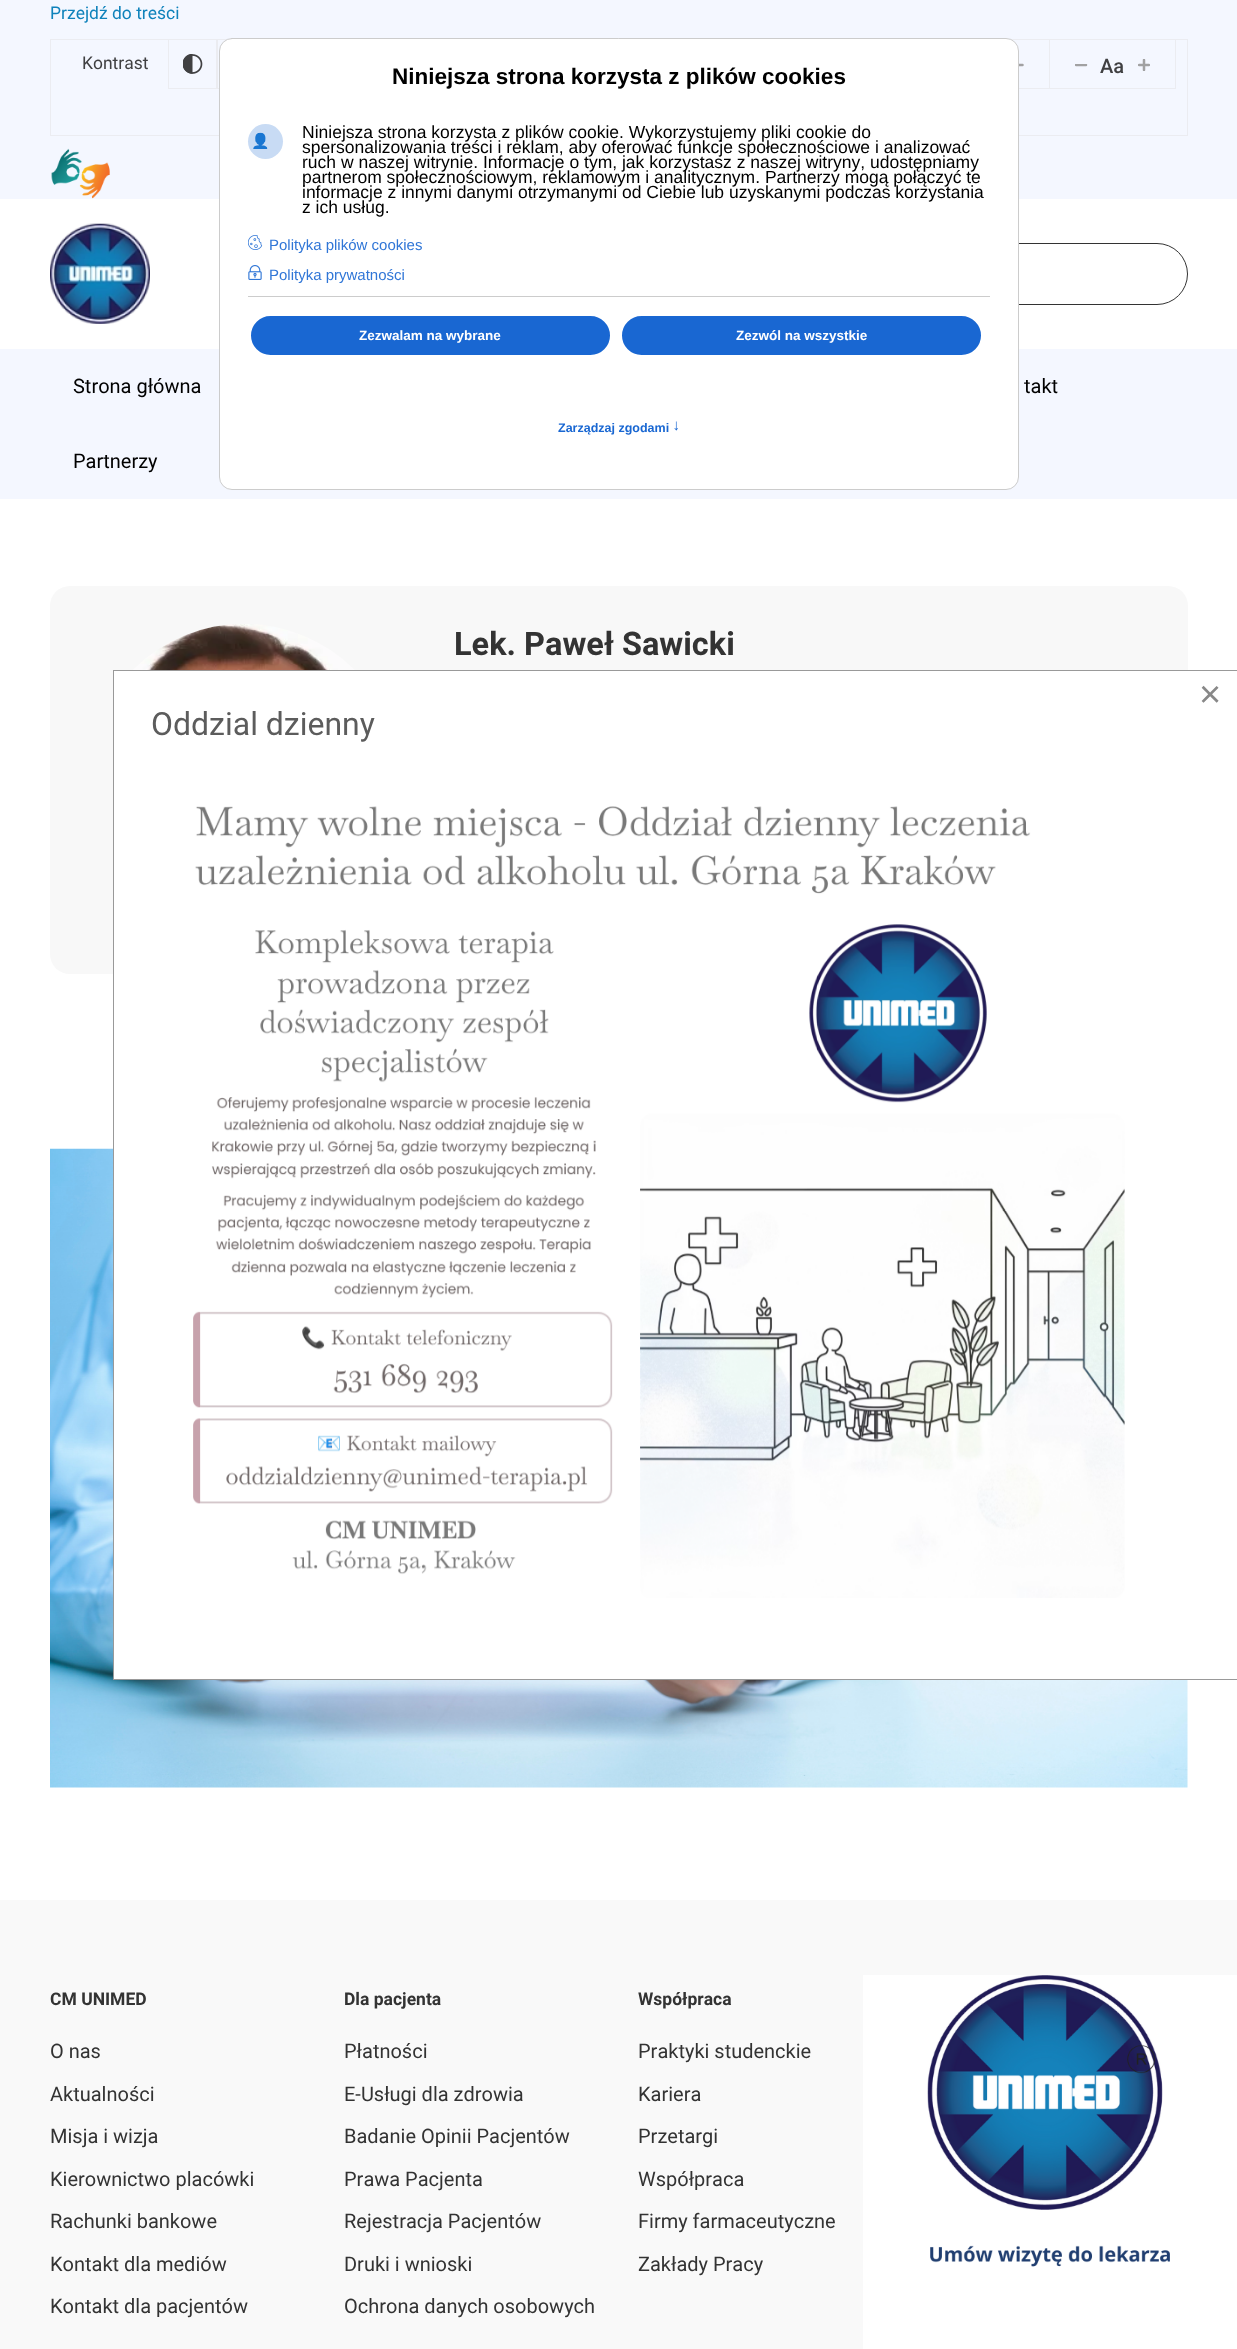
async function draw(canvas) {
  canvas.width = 1237;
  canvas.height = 2349;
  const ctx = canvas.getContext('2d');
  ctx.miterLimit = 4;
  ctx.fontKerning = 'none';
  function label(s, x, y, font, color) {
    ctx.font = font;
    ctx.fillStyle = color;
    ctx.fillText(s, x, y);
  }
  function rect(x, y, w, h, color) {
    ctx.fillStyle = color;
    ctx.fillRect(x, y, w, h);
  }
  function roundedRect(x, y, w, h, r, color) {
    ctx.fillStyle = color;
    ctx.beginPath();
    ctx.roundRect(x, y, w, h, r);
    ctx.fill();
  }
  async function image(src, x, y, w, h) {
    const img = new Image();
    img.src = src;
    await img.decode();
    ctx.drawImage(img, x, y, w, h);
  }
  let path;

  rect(0, 0, 1237, 2349, '#fff');
  rect(0, 0, 1237, 199, '#f4f7ff');
  label('Przejdź do treści', 50, 19, '17.5px Roboto', '#0f82bb');
  ctx.strokeStyle = '#ebecf1';
  ctx.strokeRect(50.5, 39.5, 1137, 96);
  label('Kontrast', 82, 69, '17.5px Roboto', '#404042');
  ctx.strokeRect(168.5, 39.5, 49, 49);
  await image('assets/img1.png', 183, 54, 20, 20);
  ctx.strokeRect(216.5, 39.5, 49, 49);
  ctx.strokeRect(928.5, 39.5, 121, 49);
  path = new Path2D('M1022.5 65H1012.5');
  ctx.strokeStyle = '#a1a1a2';
  ctx.lineWidth = 2.5;
  ctx.lineCap = 'round';
  ctx.stroke(path);
  ctx.strokeStyle = '#ebecf1';
  ctx.lineWidth = 1;
  ctx.strokeRect(1049.5, 39.5, 126, 49);
  ctx.save();
  ctx.beginPath();
  ctx.rect(1075, 64, 13, 3);
  ctx.clip();
  path = new Path2D('M1086 65H1076');
  ctx.strokeStyle = '#a1a1a2';
  ctx.lineWidth = 2.5;
  ctx.stroke(path);
  ctx.restore();
  label('Aa', 1100, 73, '500 20px Roboto', '#404042');
  ctx.save();
  ctx.beginPath();
  ctx.rect(1138, 59, 12, 12);
  ctx.clip();
  path = new Path2D('M1144 60V70M1149 65H1139');
  ctx.strokeStyle = '#a1a1a2';
  ctx.lineWidth = 2.5;
  ctx.stroke(path);
  ctx.restore();
  await image('assets/img2.png', 51, 148, 59, 51);
  await image('assets/img3.png', 50, 223, 100, 101);
  ctx.beginPath();
  ctx.roundRect(763.5, 243.5, 424, 61, 30.5);
  ctx.strokeStyle = '#333';
  ctx.stroke();
  rect(0, 349, 1237, 150, '#f4f7ff');
  label('Strona główna', 73, 393, '20px Roboto', '#000');
  label('takt', 1024, 393, '20px Roboto', '#000');
  label('Partnerzy', 73, 468, '20px Roboto', '#000');
  roundedRect(50, 586, 1138, 388, 20, '#f8f8f8');
  await image('assets/img4.png', 132, 624, 223, 46);
  label('Lek. Paweł Sawicki', 454, 655, 'bold 32.5px Roboto', '#333');
  await image('assets/img5.png', 50, 1148, 1138, 640);
  rect(0, 1900, 1237, 449, '#f9f9f9');
  label('CM UNIMED', 50, 2005, 'bold 17.5px Roboto', '#333');
  label('O nas', 50, 2058, '20px Roboto', '#333');
  label('Aktualności', 50, 2101, '20px Roboto', '#333');
  label('Misja i wizja', 50, 2143, '20px Roboto', '#333');
  label('Kierownictwo placówki', 50, 2186, '20px Roboto', '#333');
  label('Rachunki bankowe', 50, 2228, '20px Roboto', '#333');
  label('Kontakt dla mediów', 50, 2271, '20px Roboto', '#333');
  label('Kontakt dla pacjentów', 50, 2313, '20px Roboto', '#333');
  label('Dla pacjenta', 344, 2005, 'bold 17.5px Roboto', '#333');
  label('Płatności', 344, 2058, '20px Roboto', '#333');
  label('E-Usługi dla zdrowia', 344, 2101, '20px Roboto', '#333');
  label('Badanie Opinii Pacjentów', 344, 2143, '20px Roboto', '#333');
  label('Prawa Pacjenta', 344, 2186, '20px Roboto', '#333');
  label('Rejestracja Pacjentów', 344, 2228, '20px Roboto', '#333');
  label('Druki i wnioski', 344, 2271, '20px Roboto', '#333');
  label('Ochrona danych osobowych', 344, 2313, '20px Roboto', '#333');
  label('Współpraca', 638, 2005, 'bold 17.5px Roboto', '#333');
  label('Praktyki studenckie', 638, 2058, '20px Roboto', '#333');
  label('Kariera', 638, 2101, '20px Roboto', '#333');
  label('Przetargi', 638, 2143, '20px Roboto', '#333');
  label('Współpraca', 638, 2186, '20px Roboto', '#333');
  label('Firmy farmaceutyczne', 638, 2228, '20px Roboto', '#333');
  label('Zakłady Pracy', 638, 2271, '20px Roboto', '#333');
  ctx.fillStyle = '#fff';
  ctx.beginPath();
  ctx.roundRect(219.5, 38.5, 799, 451, 12.5);
  ctx.fill();
  ctx.strokeStyle = '#ccc';
  ctx.stroke();
  label('Niniejsza strona korzysta z plików cookies', 392, 84, 'bold 22.5px Liberation Sans', '#000');
  ctx.fillStyle = '#c8dbf4';
  ctx.beginPath();
  ctx.arc(265.5, 141.5, 17.5, 0, 2 * Math.PI);
  ctx.fill();
  label('👤', 251, 146, '15px Noto Color Emoji', '#000');
  label('Niniejsza strona korzysta z plików cookie. Wykorzystujemy pliki cookie do', 302, 138, '17.5px Liberation Sans', '#000');
  label('spersonalizowania treści i reklam, aby oferować funkcje społecznościowe i analizować', 302, 153, '17.5px Liberation Sans', '#000');
  label('ruch w naszej witrynie. Informacje o tym, jak korzystasz z naszej witryny, udostępniamy', 302, 168, '17.5px Liberation Sans', '#000');
  label('partnerom społecznościowym, reklamowym i analitycznym. Partnerzy mogą połączyć te', 302, 183, '17.5px Liberation Sans', '#000');
  label('informacje z innymi danymi otrzymanymi od Ciebie lub uzyskanymi podczas korzystania', 302, 198, '17.5px Liberation Sans', '#000');
  label('z ich usług.', 302, 213, '17.5px Liberation Sans', '#000');
  await image('assets/img6.png', 248, 235, 15, 15);
  label('Polityka plików cookies', 269, 250, '15px Liberation Sans', '#3076d7');
  await image('assets/img7.png', 248, 265, 14, 15);
  label('Polityka prywatności', 269, 280, '15px Liberation Sans', '#3076d7');
  rect(248, 296, 742, 1, '#ccc');
  ctx.fillStyle = '#1967d2';
  ctx.beginPath();
  ctx.roundRect(249.5, 314.5, 362, 42, 21);
  ctx.fill();
  ctx.strokeStyle = '#fff';
  ctx.lineWidth = 3;
  ctx.stroke();
  label('Zezwalam na wybrane', 359, 340, 'bold 13.5px Liberation Sans', '#fff');
  ctx.fillStyle = '#1967d2';
  ctx.beginPath();
  ctx.roundRect(620.5, 314.5, 362, 42, 21);
  ctx.fill();
  ctx.stroke();
  label('Zezwól na wszystkie', 736, 340, 'bold 13.5px Liberation Sans', '#fff');
  label('Zarządzaj zgodami', 558, 432, 'bold 12.5px Liberation Sans', '#1967d2');
  ctx.font = 'bold 15px Liberation Sans';
  ctx.save();
  ctx.translate(680, 422);
  ctx.rotate(180 * Math.PI / 180);
  ctx.fillText('↑', 0, 0);
  ctx.restore();
  rect(114, 671, 1074, 1008, '#fff');
  ctx.strokeStyle = '#999';
  ctx.lineWidth = 1;
  ctx.strokeRect(113.5, 670.5, 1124, 1009);
  label('×', 1199, 707, '38px Liberation Sans', '#888');
  label('Oddzial dzienny', 151, 735, '32px Roboto', '#5c5c5c');
  await image('assets/img8.png', 193, 806, 932, 792);
  await image('assets/img9.png', 863, 1975, 374, 374);
}

draw(document.querySelector('canvas'));
